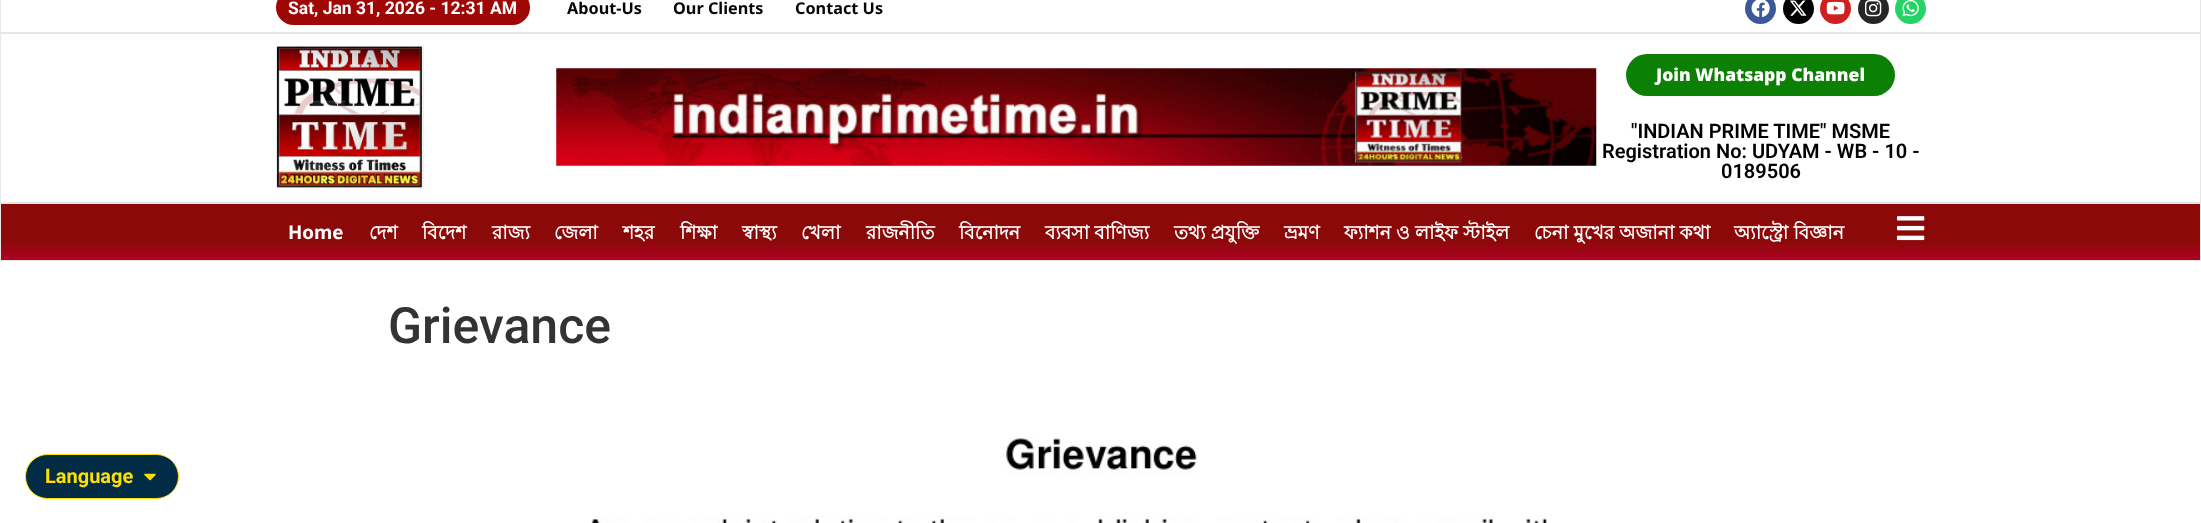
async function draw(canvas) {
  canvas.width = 2201;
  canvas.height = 523;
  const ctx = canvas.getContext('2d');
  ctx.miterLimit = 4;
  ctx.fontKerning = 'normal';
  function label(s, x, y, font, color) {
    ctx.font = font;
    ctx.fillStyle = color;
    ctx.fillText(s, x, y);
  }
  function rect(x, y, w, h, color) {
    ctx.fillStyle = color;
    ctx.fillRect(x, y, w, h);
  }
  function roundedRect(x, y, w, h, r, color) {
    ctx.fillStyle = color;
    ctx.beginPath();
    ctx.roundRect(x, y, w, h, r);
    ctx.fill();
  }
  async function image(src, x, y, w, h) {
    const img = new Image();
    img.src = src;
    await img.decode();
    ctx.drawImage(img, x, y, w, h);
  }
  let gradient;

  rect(0, 0, 2201, 523, '#fff');
  ctx.strokeStyle = '#e6e6e6';
  ctx.strokeRect(0.5, -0.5, 2200, 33);
  roundedRect(276, -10, 254, 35, 17.5, '#9f0606');
  label('Sat, Jan 31, 2026 - 12:31 AM', 288, 14, 'bold 17.5px Roboto', '#fff');
  label('About-Us', 567, 14, 'bold 16.25px Noto Sans', '#080505');
  label('Our Clients', 673, 14, 'bold 16.25px Noto Sans', '#080505');
  label('Contact Us', 795, 14, 'bold 16.25px Noto Sans', '#080505');
  ctx.fillStyle = '#3b5998';
  ctx.beginPath();
  ctx.arc(1760.5, 8.5, 15.5, 0, 2 * Math.PI);
  ctx.fill();
  await image('assets/img1.png', 1751, 0, 19, 17);
  ctx.fillStyle = '#000';
  ctx.beginPath();
  ctx.arc(1798.5, 8.5, 15.5, 0, 2 * Math.PI);
  ctx.fill();
  await image('assets/img2.png', 1789, 0, 18, 16);
  ctx.fillStyle = '#cd201f';
  ctx.beginPath();
  ctx.arc(1835.5, 8.5, 15.5, 0, 2 * Math.PI);
  ctx.fill();
  await image('assets/img3.png', 1826, 1, 19, 14);
  ctx.fillStyle = '#262626';
  ctx.beginPath();
  ctx.arc(1873.5, 8.5, 15.5, 0, 2 * Math.PI);
  ctx.fill();
  await image('assets/img4.png', 1864, 0, 18, 17);
  ctx.fillStyle = '#25d366';
  ctx.beginPath();
  ctx.arc(1910.5, 8.5, 15.5, 0, 2 * Math.PI);
  ctx.fill();
  await image('assets/img5.png', 1902, 0, 17, 17);
  ctx.strokeRect(0.5, 33.5, 2200, 169);
  await image('assets/img6.png', 276, 45, 148, 143);
  await image('assets/img7.png', 556, 68, 1041, 98);
  roundedRect(1626, 54, 269, 42, 21, '#0c8005');
  label('Join Whatsapp Channel', 1656, 81, '900 17.5px Noto Sans', '#fff');
  label('"INDIAN PRIME TIME" MSME', 1631, 138, '600 20px Roboto', '#000');
  label('Registration No: UDYAM - WB - 10 -', 1602, 158, '600 20px Roboto', '#000');
  label('0189506', 1721, 178, '600 20px Roboto', '#000');
  gradient = ctx.createLinearGradient(1101, 204, 1101, 260);
  gradient.addColorStop(0.67, '#8c0909');
  gradient.addColorStop(1, '#b00123');
  ctx.fillStyle = gradient;
  ctx.fillRect(1, 204, 2199, 56);
  ctx.strokeRect(0.5, 203.5, 2200, 57);
  label('Home', 288, 239, 'bold 18.75px Noto Sans', '#fff');
  label('দেশ', 369, 239, 'bold 18.75px Lohit Bengali', '#fff');
  label('বিদেশ', 422, 239, 'bold 18.75px Lohit Bengali', '#fff');
  label('রাজ্য', 492, 239, 'bold 18.75px Lohit Bengali', '#fff');
  label('জেলা', 554, 239, 'bold 18.75px Lohit Bengali', '#fff');
  label('শহর', 623, 239, 'bold 18.75px Lohit Bengali', '#fff');
  label('শিক্ষা', 680, 239, 'bold 18.75px Lohit Bengali', '#fff');
  label('স্বাস্থ্য', 742, 239, 'bold 18.75px Lohit Bengali', '#fff');
  label('খেলা', 801, 239, 'bold 18.75px Lohit Bengali', '#fff');
  label('রাজনীতি', 866, 239, 'bold 18.75px Lohit Bengali', '#fff');
  label('বিনোদন', 959, 239, 'bold 18.75px Lohit Bengali', '#fff');
  label('ব্যবসা বাণিজ্য', 1045, 239, 'bold 18.75px Lohit Bengali', '#fff');
  label('তথ্য প্রযুক্তি', 1174, 239, 'bold 18.75px Lohit Bengali', '#fff');
  label('ভ্রমণ', 1284, 239, 'bold 18.75px Lohit Bengali', '#fff');
  label('ফ্যাশন ও লাইফ স্টাইল', 1344, 239, 'bold 18.75px Lohit Bengali', '#fff');
  label('চেনা মুখের অজানা কথা', 1534, 239, 'bold 18.75px Lohit Bengali', '#fff');
  label('অ্যাস্ট্রো বিজ্ঞান', 1734, 239, 'bold 18.75px Lohit Bengali', '#fff');
  await image('assets/img8.png', 1896, 216, 29, 25);
  label('Grievance', 388, 343, '500 50px Roboto', '#333');
  await image('assets/img9.png', 591, 438, 956, 85);
  ctx.fillStyle = '#022c45';
  ctx.beginPath();
  ctx.roundRect(25.5, 454.5, 153, 44, 22);
  ctx.fill();
  ctx.strokeStyle = '#ffdf00';
  ctx.stroke();
  label('Language', 45, 483, 'bold 20px Roboto', '#ffdf00');
  await image('assets/img10.png', 144, 473, 12, 8);
}

draw(document.querySelector('canvas'));
